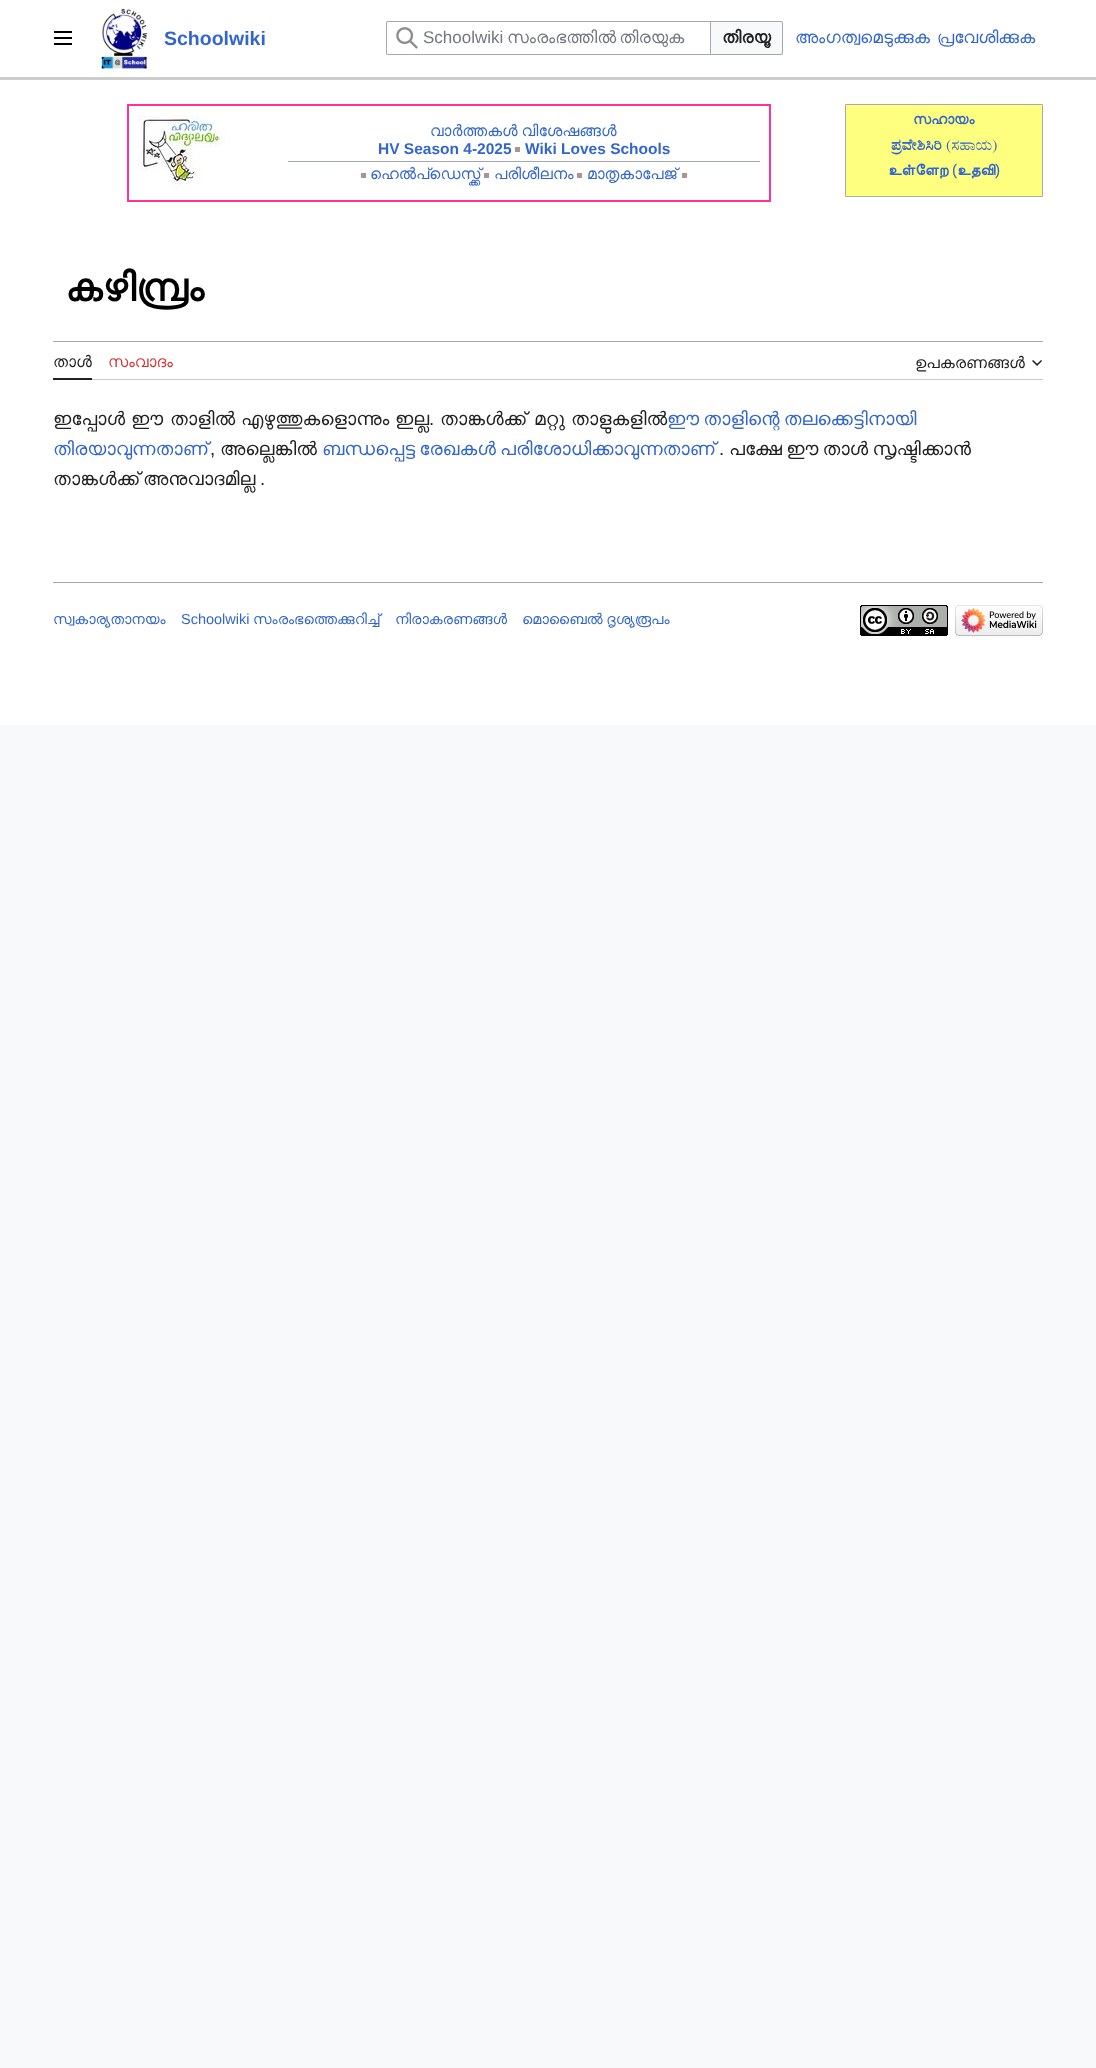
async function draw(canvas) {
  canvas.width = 1096;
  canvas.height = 2068;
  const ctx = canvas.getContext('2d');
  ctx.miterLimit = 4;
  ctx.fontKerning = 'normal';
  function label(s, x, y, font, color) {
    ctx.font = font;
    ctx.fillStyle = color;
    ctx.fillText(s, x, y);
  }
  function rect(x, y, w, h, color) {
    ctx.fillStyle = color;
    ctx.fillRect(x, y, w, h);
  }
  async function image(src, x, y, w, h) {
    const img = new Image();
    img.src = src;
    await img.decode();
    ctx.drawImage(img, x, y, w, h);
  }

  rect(0, 0, 1096, 2068, '#f8f9fa');
  rect(0, 0, 1096, 77, '#fff');
  rect(0, 77, 1096, 3, '#ccc');
  await image('assets/img1.png', 54, 31, 18, 14);
  await image('assets/img2.png', 101, 8, 47, 61);
  label('Schoolwiki', 164, 45, 'bold 19.5px Liberation Sans', '#36c');
  ctx.beginPath();
  ctx.roundRect(386.5, 21.5, 396, 33, 1.5);
  ctx.strokeStyle = '#a2a9b1';
  ctx.stroke();
  ctx.fillStyle = '#f8f9fa';
  ctx.beginPath();
  ctx.roundRect(710.5, 21.5, 72, 33, [0, 1.5, 1.5, 0]);
  ctx.fill();
  ctx.stroke();
  ctx.fillStyle = '#fff';
  ctx.beginPath();
  ctx.roundRect(386.5, 21.5, 324, 33, [1.5, 0, 0, 1.5]);
  ctx.fill();
  ctx.stroke();
  await image('assets/img3.png', 396, 27, 22, 22);
  label('Schoolwiki', 423, 43, '17px Liberation Sans', '#72777d');
  ctx.wordSpacing = '-1px';
  label('സംരംഭത്തിൽ തിരയുക', 507, 43, '17px FreeSans', '#72777d');
  ctx.wordSpacing = '0px';
  label('തിരയൂ', 722, 43, 'bold 17px FreeSans', '#202122');
  label('അംഗത്വമെടുക്കുക', 795, 43, '17px FreeSans', '#36c');
  label('പ്രവേശിക്കുക', 937, 43, '17px FreeSans', '#36c');
  rect(0, 80, 1096, 645, '#fff');
  ctx.strokeStyle = '#ff3396';
  ctx.lineWidth = 2;
  ctx.strokeRect(128, 105, 642, 96);
  await image('assets/img4.png', 138, 115, 87, 72);
  label('വാർത്തകൾ വിശേഷങ്ങൾ', 430, 136, '15.5px FreeSans', '#36c');
  label('HV Season 4-2025', 378, 154, 'bold 15.5px Liberation Sans', '#36c');
  rect(515, 147, 5, 5, '#ad9494');
  label('Wiki Loves Schools', 525, 154, 'bold 15.5px Liberation Sans', '#36c');
  rect(288, 161, 472, 1, '#a2a9b1');
  rect(361, 173, 5, 5, '#ad9494');
  label('ഹെൽപ്ഡെസ്ക്ക്', 370, 179, '15.5px FreeSans', '#36c');
  rect(484, 173, 5, 5, '#ad9494');
  label('പരിശീലനം', 494, 179, '15.5px FreeSans', '#36c');
  rect(577, 173, 5, 5, '#ad9494');
  label('മാതൃകാപേജ്', 587, 179, '15.5px FreeSans', '#36c');
  rect(682, 173, 5, 5, '#ad9494');
  ctx.fillStyle = '#ffff7f';
  ctx.beginPath();
  ctx.rect(845.5, 104.5, 197, 92);
  ctx.fill();
  ctx.strokeStyle = '#aaa';
  ctx.lineWidth = 1;
  ctx.stroke();
  label('സഹായം', 913, 124, 'bold 14px FreeSans', '#36c');
  label('ಪ್ರವೇಶಿಸಿರಿ', 891, 150, 'bold 15.5px FreeSerif', '#36c');
  label('(ಸಹಾಯ)', 946, 150, '15.5px FreeSerif', '#36c');
  label('உள்ளேற', 888, 175, 'bold 15.5px FreeSans', '#36c');
  label('(', 952, 175, '15.5px Liberation Sans', '#36c');
  label('உதவி', 957, 175, 'bold 15.5px FreeSans', '#36c');
  label(')', 995, 175, '15.5px Liberation Sans', '#36c');
  rect(53, 341, 990, 1, '#a2a9b1');
  label('കഴിമ്പ്രം', 65, 301, 'bold 39px FreeSans', '#000');
  rect(92, 379, 951, 1, '#c8ccd1');
  rect(53, 378, 39, 2, '#202122');
  label('താൾ', 53, 367, '15.75px FreeSans', '#202122');
  label('സംവാദം', 108, 367, '15.75px FreeSans', '#d73333');
  label('ഉപകരണങ്ങൾ', 915, 368, '15.75px FreeSans', '#202122');
  await image('assets/img5.png', 1032, 360, 10, 6);
  label('ഇപ്പോൾ', 53, 425, '18.6px FreeSans', '#202122');
  label('ഈ', 131, 425, '18.6px FreeSans', '#202122');
  label('താളിൽ', 170, 425, '18.6px FreeSans', '#202122');
  label('എഴുത്തുകളൊന്നും', 241, 425, '18.6px FreeSans', '#202122');
  label('ഇല്ല', 395, 425, '18.6px FreeSans', '#202122');
  label('.', 429, 425, '18.6px Liberation Sans', '#202122');
  label('താങ്കൾക്ക്', 440, 425, '18.6px FreeSans', '#202122');
  label('മറ്റു', 534, 425, '18.6px FreeSans', '#202122');
  label('താളുകളിൽ', 571, 425, '18.6px FreeSans', '#202122');
  ctx.wordSpacing = '-0.5px';
  label('ഈ താളിന്റെ തലക്കെട്ടിനായി', 667, 425, '18.6px FreeSans', '#36c');
  ctx.wordSpacing = '0px';
  label('തിരയാവുന്നതാണ്', 53, 455, '18.6px FreeSans', '#36c');
  label(',', 210, 455, '18.6px Liberation Sans', '#202122');
  label('അല്ലെങ്കിൽ', 220, 455, '18.6px FreeSans', '#202122');
  ctx.wordSpacing = '-0.5px';
  label('ബന്ധപ്പെട്ട രേഖകൾ പരിശോധിക്കാവുന്നതാണ്', 322, 455, '18.6px FreeSans', '#36c');
  ctx.wordSpacing = '0px';
  label('.', 719, 455, '18.6px Liberation Sans', '#202122');
  ctx.wordSpacing = '-0.5px';
  label('പക്ഷേ ഈ താൾ സൃഷ്ടിക്കാൻ', 729, 455, '18.6px FreeSans', '#202122');
  label('താങ്കൾക്ക് അനുവാദമില്ല', 53, 485, '18.6px FreeSans', '#202122');
  ctx.wordSpacing = '0px';
  label('.', 260, 485, '18.6px Liberation Sans', '#202122');
  rect(53, 582, 990, 1, '#a2a9b1');
  label('സ്വകാര്യതാനയം', 53, 624, '14.5px FreeSans', '#36c');
  label('Schoolwiki', 181, 624, '14.5px Liberation Sans', '#36c');
  label('സംരംഭത്തെക്കുറിച്ച്', 253, 624, '14.5px FreeSans', '#36c');
  label('നിരാകരണങ്ങൾ', 395, 624, '14.5px FreeSans', '#36c');
  label('മൊബൈൽ ദൃശ്യരൂപം', 522, 624, '14.5px FreeSans', '#36c');
  await image('assets/img6.png', 860, 605, 88, 31);
  await image('assets/img7.png', 955, 605, 88, 31);
}

draw(document.querySelector('canvas'));
